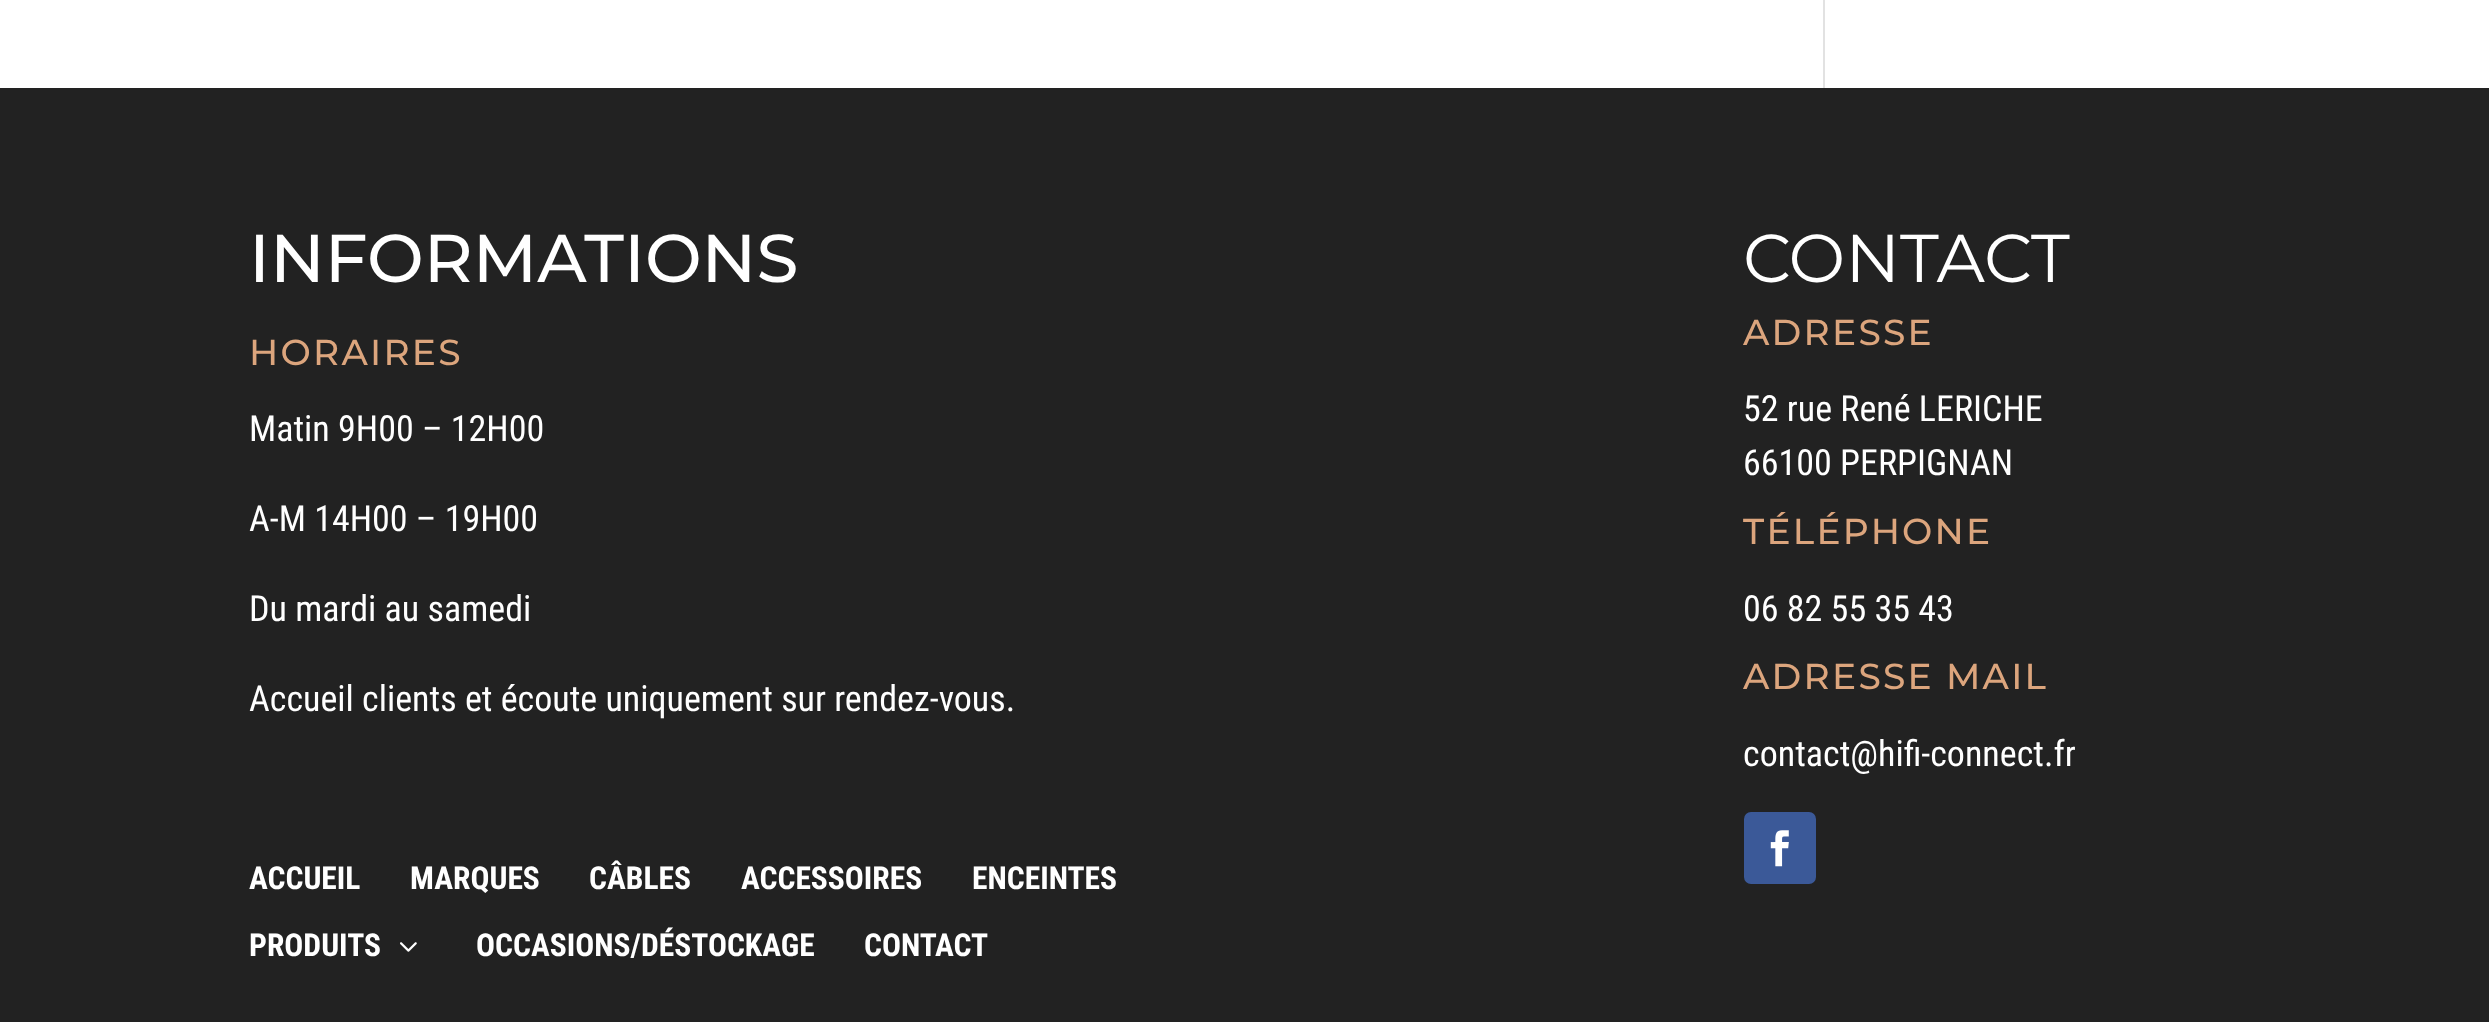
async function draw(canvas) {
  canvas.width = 2489;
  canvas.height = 1022;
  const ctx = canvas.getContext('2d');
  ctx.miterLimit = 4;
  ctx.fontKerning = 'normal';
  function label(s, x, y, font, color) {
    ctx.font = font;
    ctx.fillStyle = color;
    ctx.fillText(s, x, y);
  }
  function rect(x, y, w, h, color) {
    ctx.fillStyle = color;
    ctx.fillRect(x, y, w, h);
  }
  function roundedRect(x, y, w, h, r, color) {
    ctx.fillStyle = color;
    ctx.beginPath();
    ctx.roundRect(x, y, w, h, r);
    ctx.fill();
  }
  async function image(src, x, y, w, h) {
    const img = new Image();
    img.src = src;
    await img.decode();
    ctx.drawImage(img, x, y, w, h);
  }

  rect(0, 0, 2489, 1022, '#fff');
  rect(1823, 0, 2, 88, '#e2e2e2');
  rect(0, 88, 2489, 934, '#222');
  label('INFORMATIONS', 249, 282, '500 67.5px Montserrat', '#fff');
  ctx.letterSpacing = '2.25px';
  label('HORAIRES', 249, 365, '500 36px Montserrat', '#dca57d');
  ctx.letterSpacing = '0px';
  label('Matin 9H00 – 12H00', 249, 441, '36px Roboto Condensed', '#fff');
  label('A-M 14H00 – 19H00', 249, 531, '36px Roboto Condensed', '#fff');
  label('Du mardi au samedi', 249, 621, '36px Roboto Condensed', '#fff');
  label('Accueil clients et écoute uniquement sur rendez-vous.', 249, 711, '36px Roboto Condensed', '#fff');
  label('ACCUEIL', 249, 889, 'bold 31.5px Roboto Condensed', '#fff');
  label('MARQUES', 410, 889, 'bold 31.5px Roboto Condensed', '#fff');
  label('CÂBLES', 589, 889, 'bold 31.5px Roboto Condensed', '#fff');
  label('ACCESSOIRES', 741, 889, 'bold 31.5px Roboto Condensed', '#fff');
  label('ENCEINTES', 972, 889, 'bold 31.5px Roboto Condensed', '#fff');
  label('PRODUITS', 249, 956, 'bold 31.5px Roboto Condensed', '#fff');
  await image('assets/img1.png', 400, 942, 17, 10);
  label('OCCASIONS/DÉSTOCKAGE', 476, 956, 'bold 31.5px Roboto Condensed', '#fff');
  label('CONTACT', 864, 956, 'bold 31.5px Roboto Condensed', '#fff');
  label('CONTACT', 1743, 282, '67.5px Montserrat', '#fff');
  ctx.letterSpacing = '2.25px';
  label('ADRESSE', 1743, 345, '500 36px Montserrat', '#dca57d');
  ctx.letterSpacing = '0px';
  label('52 rue René LERICHE', 1743, 421, '36px Roboto Condensed', '#fff');
  label('66100 PERPIGNAN', 1743, 475, '36px Roboto Condensed', '#fff');
  ctx.letterSpacing = '2.25px';
  label('TÉLÉPHONE', 1743, 544, '500 36px Montserrat', '#dca57d');
  ctx.letterSpacing = '0px';
  label('06 82 55 35 43', 1743, 621, '36px Roboto Condensed', '#fff');
  ctx.letterSpacing = '2.25px';
  label('ADRESSE MAIL', 1743, 689, '500 36px Montserrat', '#dca57d');
  ctx.letterSpacing = '0px';
  label('contact@hifi-connect.fr', 1743, 766, '36px Roboto Condensed', '#fff');
  roundedRect(1744, 812, 72, 72, 7, '#3b5998');
  await image('assets/img2.png', 1770, 830, 19, 37);
}

draw(document.querySelector('canvas'));
